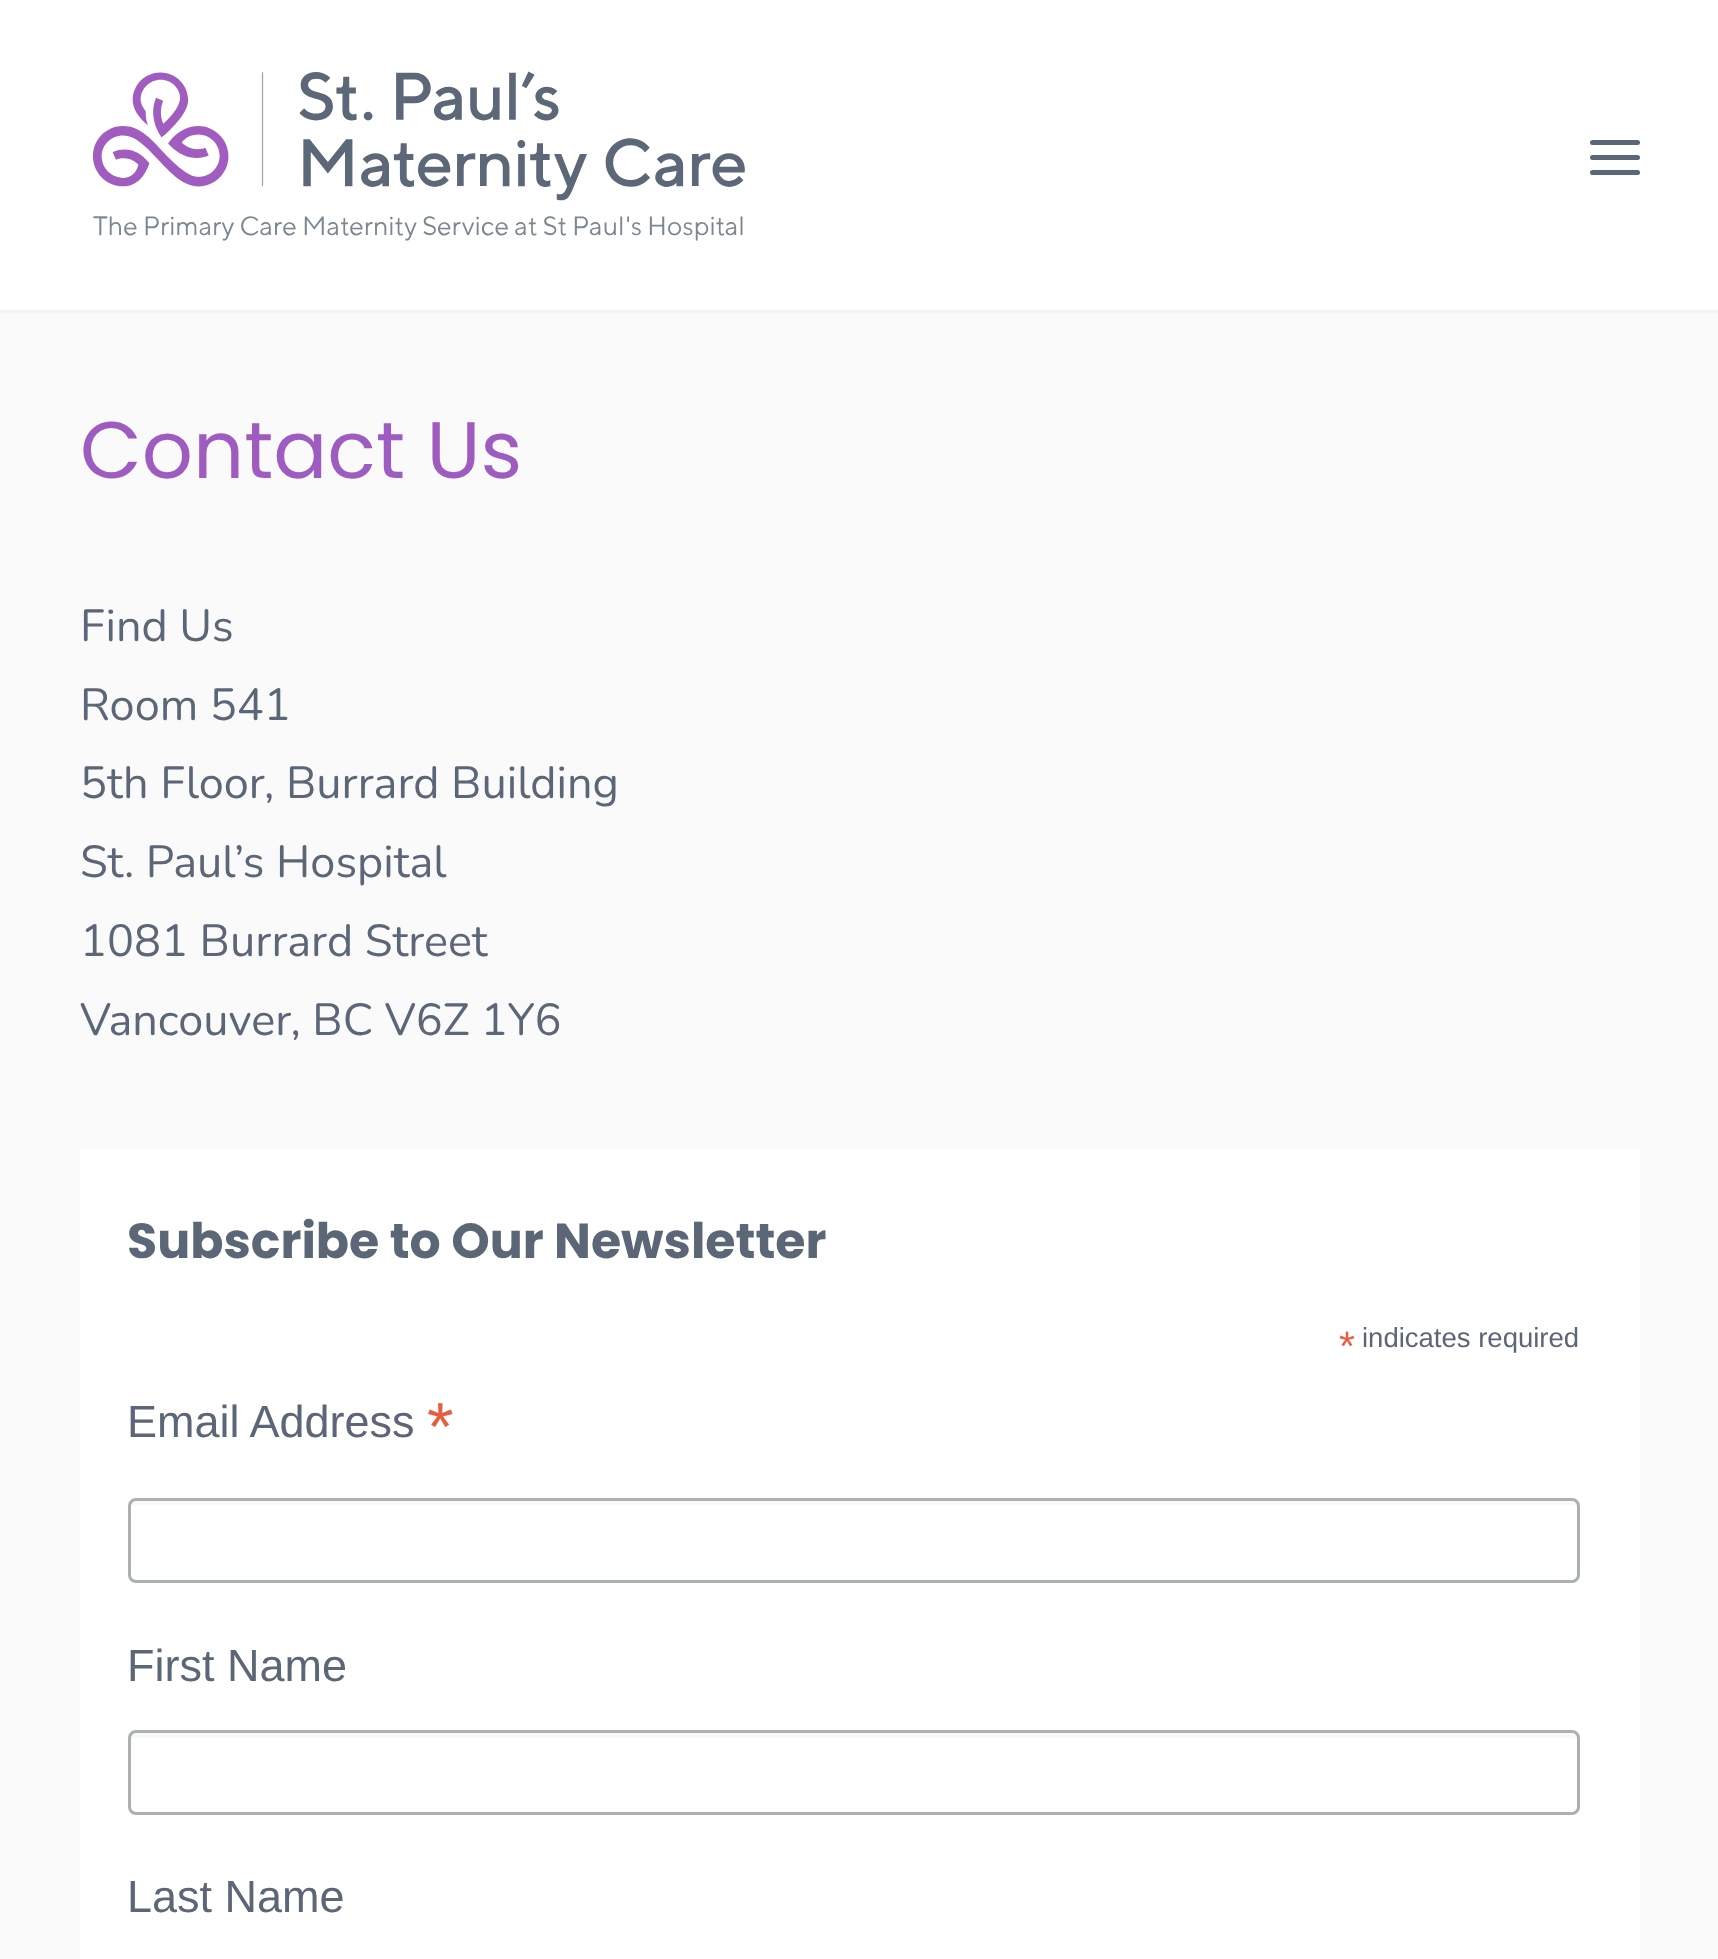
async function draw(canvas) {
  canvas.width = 1718;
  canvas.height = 1959;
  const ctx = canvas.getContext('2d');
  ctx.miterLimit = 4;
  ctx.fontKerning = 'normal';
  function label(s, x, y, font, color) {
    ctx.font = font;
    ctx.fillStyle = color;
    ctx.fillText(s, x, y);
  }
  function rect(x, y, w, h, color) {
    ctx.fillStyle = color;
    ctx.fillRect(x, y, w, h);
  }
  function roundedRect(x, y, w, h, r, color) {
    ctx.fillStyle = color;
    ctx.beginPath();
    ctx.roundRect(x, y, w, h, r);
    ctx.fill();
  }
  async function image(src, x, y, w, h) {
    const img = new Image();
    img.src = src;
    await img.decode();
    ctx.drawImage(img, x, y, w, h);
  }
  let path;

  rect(0, 0, 1718, 1959, '#fafafb');
  rect(0, 0, 1718, 310, '#fff');
  rect(0, 310, 1718, 3, '#f4f4f7');
  await image('assets/img1.png', 93, 71, 652, 170);
  roundedRect(1590, 155, 50, 5, 2.5, '#5b6777');
  roundedRect(1590, 140, 50, 5, 2.5, '#5b6777');
  roundedRect(1590, 170, 50, 5, 2.5, '#5b6777');
  label('Contact Us', 80, 478, '80px Poppins', '#9f5cc0');
  label('Find Us', 80, 641, '45px Nunito', '#5b6777');
  label('Room 541', 80, 720, '45px Nunito', '#5b6777');
  label('5th Floor, Burrard Building', 80, 798, '45px Nunito', '#5b6777');
  label('St. Paul’s Hospital', 80, 877, '45px Nunito', '#5b6777');
  label('1081 Burrard Street', 80, 956, '45px Nunito', '#5b6777');
  label('Vancouver, BC V6Z 1Y6', 80, 1035, '45px Nunito', '#5b6777');
  rect(80, 1150, 1560, 809, '#fff');
  label('Subscribe to Our Newsletter', 127, 1258, 'bold 49px Poppins', '#5b6777');
  label('*', 1339, 1360, '41px Liberation Sans', '#e85c41');
  label('indicates required', 1362, 1347, '27.5px Liberation Sans', '#5b6777');
  label('Email Address', 127, 1437, '45px Liberation Sans', '#5b6777');
  label('*', 427, 1450, '68px Liberation Sans', '#e85c41');
  ctx.fillStyle = '#f9f9f9';
  path = new Path2D('M135 1505H1572C1575 1505 1578 1507 1578 1510V1505C1578 1502 1576 1500 1573 1500H135C132 1500 130 1502 130 1505V1510C130 1507 132 1505 135 1505Z');
  ctx.fill(path);
  ctx.beginPath();
  ctx.roundRect(129.5, 1499.5, 1449, 82, 6.5);
  ctx.strokeStyle = '#abb0b2';
  ctx.lineWidth = 3;
  ctx.stroke();
  label('First Name', 127, 1681, '45px Liberation Sans', '#5b6777');
  ctx.fillStyle = '#f9f9f9';
  path = new Path2D('M135 1738H1572C1575 1738 1578 1740 1578 1742V1738C1578 1735 1576 1733 1573 1733H135C132 1733 130 1735 130 1738V1742C130 1740 132 1738 135 1738Z');
  ctx.fill(path);
  ctx.beginPath();
  ctx.roundRect(129.5, 1731.5, 1449, 82, 6.5);
  ctx.stroke();
  label('Last Name', 127, 1912, '45px Liberation Sans', '#5b6777');
}

draw(document.querySelector('canvas'));
